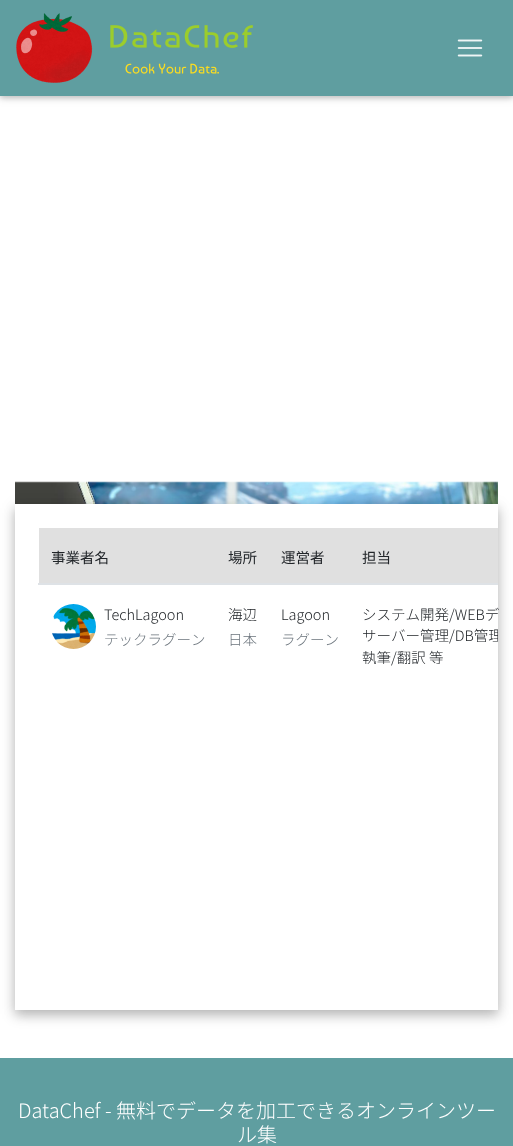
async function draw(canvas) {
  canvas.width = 513;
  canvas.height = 1146;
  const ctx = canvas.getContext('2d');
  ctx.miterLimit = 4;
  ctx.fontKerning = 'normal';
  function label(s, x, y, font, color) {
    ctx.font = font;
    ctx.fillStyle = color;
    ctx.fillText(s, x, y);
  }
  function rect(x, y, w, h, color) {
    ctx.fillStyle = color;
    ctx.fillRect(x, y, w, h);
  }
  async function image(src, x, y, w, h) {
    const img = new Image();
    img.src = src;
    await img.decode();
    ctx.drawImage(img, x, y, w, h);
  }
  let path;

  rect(0, 0, 513, 1146, '#fff');
  ctx.fillStyle = '#0000001f';
  ctx.filter = 'blur(5px)';
  ctx.beginPath();
  ctx.rect(0, 2, 513, 96);
  ctx.fill();
  ctx.filter = 'none';
  ctx.fillStyle = '#00000029';
  ctx.filter = 'blur(2.5px)';
  ctx.beginPath();
  ctx.rect(0, 2, 513, 96);
  ctx.fill();
  ctx.filter = 'none';
  rect(0, 0, 513, 96, '#5f9ea0');
  await image('assets/img1.png', 16, 13, 237, 70);
  await image('assets/img2.png', 457, 39, 26, 18);
  await image('assets/img3.png', 15, 481, 483, 23);
  ctx.save();
  path = new Path2D('M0 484H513V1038H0ZM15 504H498V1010H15Z');
  ctx.clip(path, 'evenodd');
  ctx.fillStyle = '#00000026';
  ctx.filter = 'blur(7.5px)';
  ctx.beginPath();
  ctx.rect(15, 508, 483, 506);
  ctx.fill();
  ctx.filter = 'none';
  ctx.restore();
  ctx.save();
  path = new Path2D('M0 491H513V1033H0ZM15 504H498V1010H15Z');
  ctx.clip(path, 'evenodd');
  ctx.fillStyle = '#0000002e';
  ctx.filter = 'blur(5.5px)';
  ctx.beginPath();
  ctx.rect(15, 509, 483, 506);
  ctx.fill();
  ctx.filter = 'none';
  ctx.restore();
  rect(39, 528, 459, 55, '#e0e0e0');
  label('事業者名', 51, 563, '14.5px Noto Sans JP', '#212529');
  label('場所', 228, 563, '14.5px Noto Sans JP', '#212529');
  label('運営者', 281, 563, '14.5px Noto Sans JP', '#212529');
  rect(38, 583, 460, 2, '#dee2e6');
  label('担当', 362, 563, '14.5px Noto Sans JP', '#212529');
  await image('assets/img4.png', 52, 604, 44, 45);
  label('TechLagoon', 104, 620, '300 14.5px Noto Sans JP', '#212529');
  label('テックラグーン', 104, 645, '300 14.5px Noto Sans JP', '#6c757d');
  label('海辺', 228, 620, '300 14.5px Noto Sans JP', '#212529');
  label('日本', 228, 645, '300 14.5px Noto Sans JP', '#6c757d');
  label('Lagoon', 281, 620, '300 14.5px Noto Sans JP', '#212529');
  label('ラグーン', 281, 645, '300 14.5px Noto Sans JP', '#6c757d');
  label('システム開発/WEBデ', 362, 620, '300 14.5px Noto Sans JP', '#212529');
  ctx.save();
  ctx.beginPath();
  ctx.rect(15, 504, 483, 506);
  ctx.clip();
  label('サーバー管理/DB管理', 362, 641, '300 14.5px Noto Sans JP', '#212529');
  ctx.restore();
  label('執筆/翻訳 等', 362, 663, '300 14.5px Noto Sans JP', '#212529');
  rect(0, 1058, 513, 88, '#5f9ea0');
  label('DataChef - 無料でデータを加工できるオンラインツー', 18, 1118, '300 20px Noto Sans JP', '#fff');
  label('ル集', 237, 1142, '300 20px Noto Sans JP', '#fff');
}

draw(document.querySelector('canvas'));
